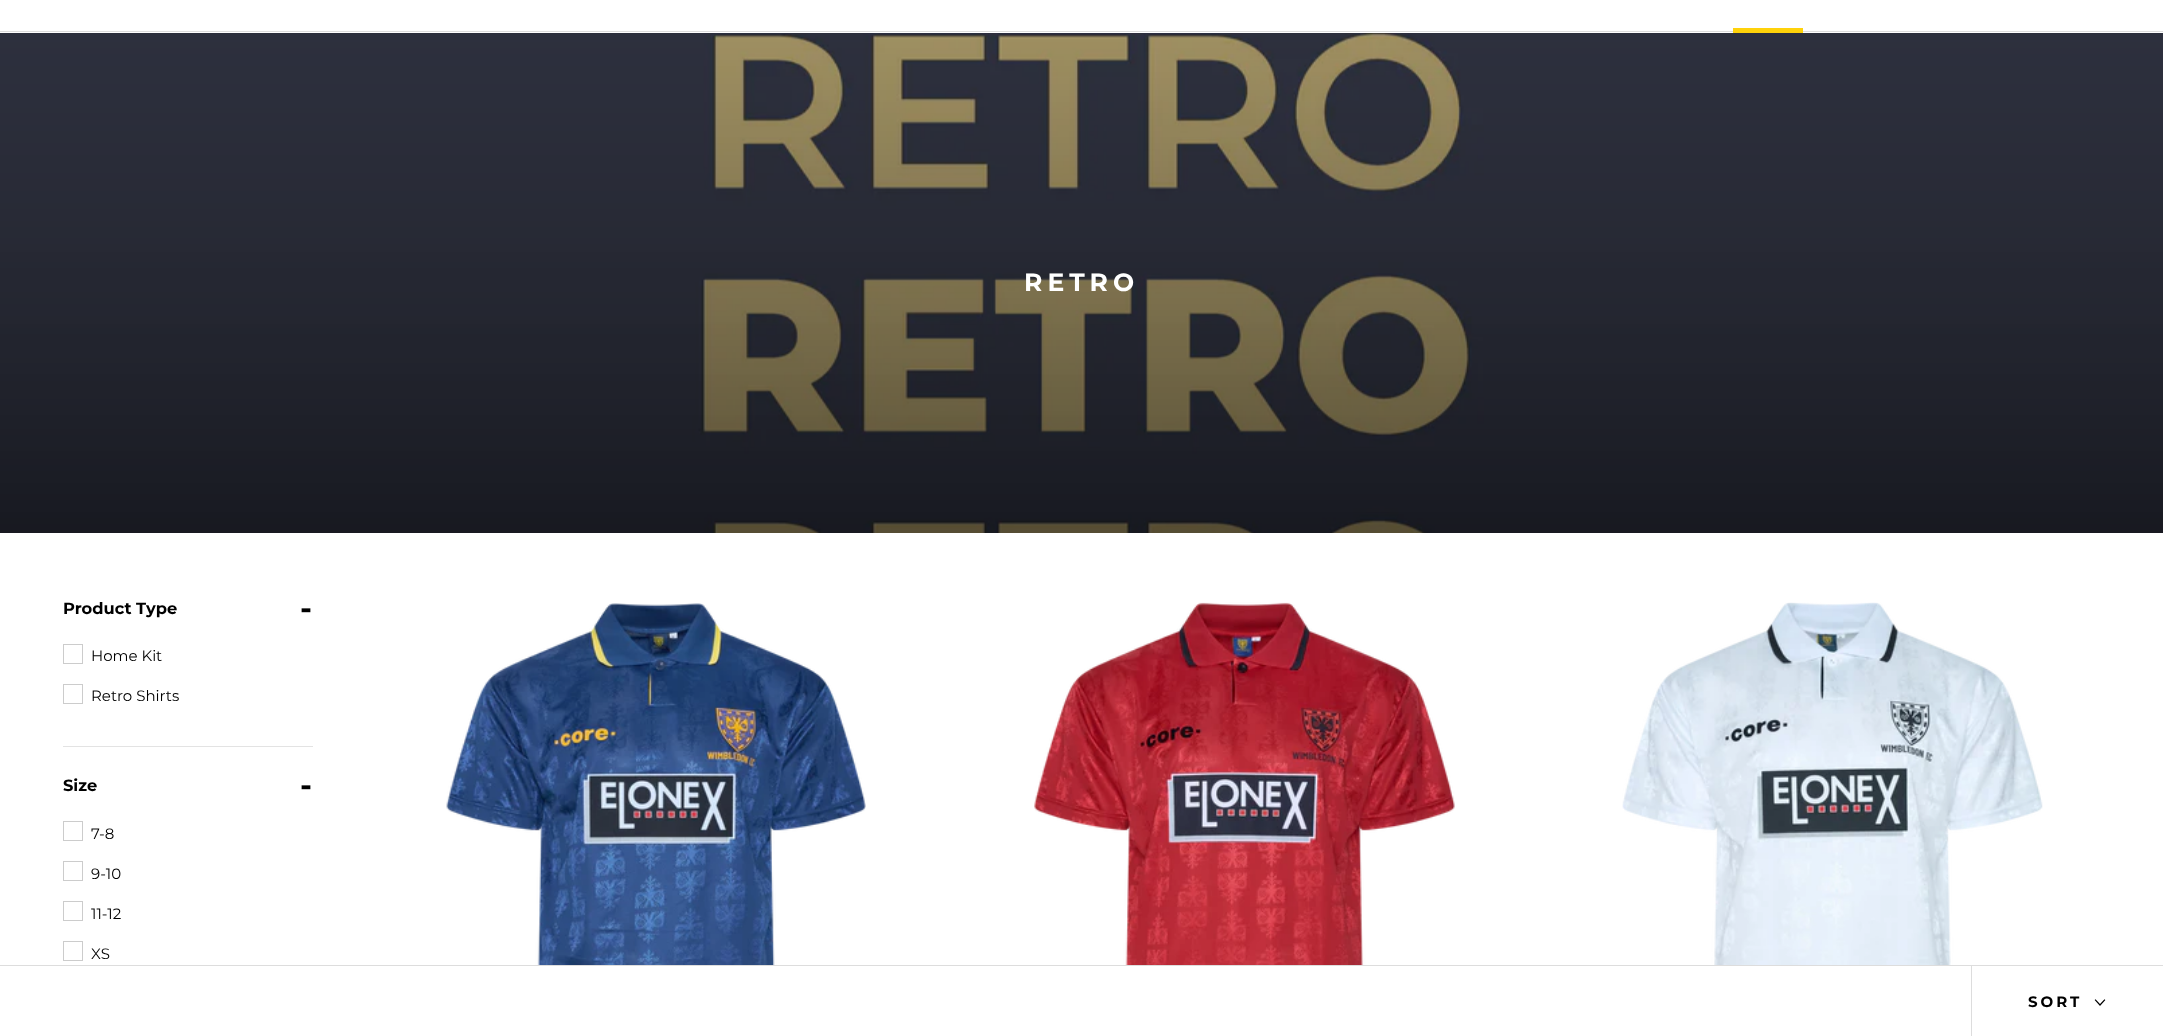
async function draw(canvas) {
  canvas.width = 2163;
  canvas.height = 1036;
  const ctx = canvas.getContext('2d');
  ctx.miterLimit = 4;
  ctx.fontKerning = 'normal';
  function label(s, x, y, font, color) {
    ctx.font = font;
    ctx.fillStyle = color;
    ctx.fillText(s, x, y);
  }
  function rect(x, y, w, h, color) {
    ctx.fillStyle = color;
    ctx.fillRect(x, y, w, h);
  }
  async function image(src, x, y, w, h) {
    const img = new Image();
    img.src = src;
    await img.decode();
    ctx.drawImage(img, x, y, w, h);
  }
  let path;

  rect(0, 0, 2163, 1036, '#fff');
  rect(0, 31, 2163, 1, '#ddd');
  rect(1733, 28, 70, 5, '#ffd20a');
  await image('assets/img1.png', 0, 33, 2163, 500);
  ctx.letterSpacing = '5px';
  label('RETRO', 1024, 291, 'bold 25px Montserrat', '#fff');
  rect(63, 746, 250, 1, '#e3e3e3');
  ctx.letterSpacing = '0px';
  label('Product Type', 63, 614, 'bold 16.25px Montserrat', '#000');
  label('-', 300, 619, 'bold 31px Montserrat', '#000');
  ctx.strokeStyle = '#ccc';
  ctx.strokeRect(63.5, 644.5, 19, 19);
  label('Home Kit', 91, 661, '15px Montserrat', '#000');
  ctx.strokeRect(63.5, 684.5, 19, 19);
  label('Retro Shirts', 91, 701, '15px Montserrat', '#000');
  label('Size', 63, 791, 'bold 16.25px Montserrat', '#000');
  label('-', 300, 796, 'bold 31px Montserrat', '#000');
  ctx.strokeRect(63.5, 821.5, 19, 19);
  label('7-8', 91, 839, '15px Montserrat', '#000');
  ctx.strokeRect(63.5, 861.5, 19, 19);
  label('9-10', 91, 879, '15px Montserrat', '#000');
  ctx.strokeRect(63.5, 901.5, 19, 19);
  label('11-12', 91, 919, '15px Montserrat', '#000');
  ctx.strokeRect(63.5, 941.5, 19, 19);
  label('XS', 91, 959, '15px Montserrat', '#000');
  await image('assets/img2.png', 446, 603, 420, 362);
  await image('assets/img3.png', 1034, 602, 421, 363);
  await image('assets/img4.png', 1622, 602, 421, 363);
  ctx.fillStyle = '#ddd';
  path = new Path2D('M-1 965V1035H0V966H2163V965Z');
  ctx.fill(path);
  rect(1971, 966, 1, 70, '#ddd');
  ctx.letterSpacing = '3px';
  label('SORT', 2028, 1007, 'bold 15px Montserrat', '#000');
  path = new Path2D('M2104.5 1000L2100 1005L2095.5 1000');
  ctx.strokeStyle = '#000';
  ctx.lineWidth = 1.2;
  ctx.lineCap = 'square';
  ctx.stroke(path);
}

draw(document.querySelector('canvas'));
